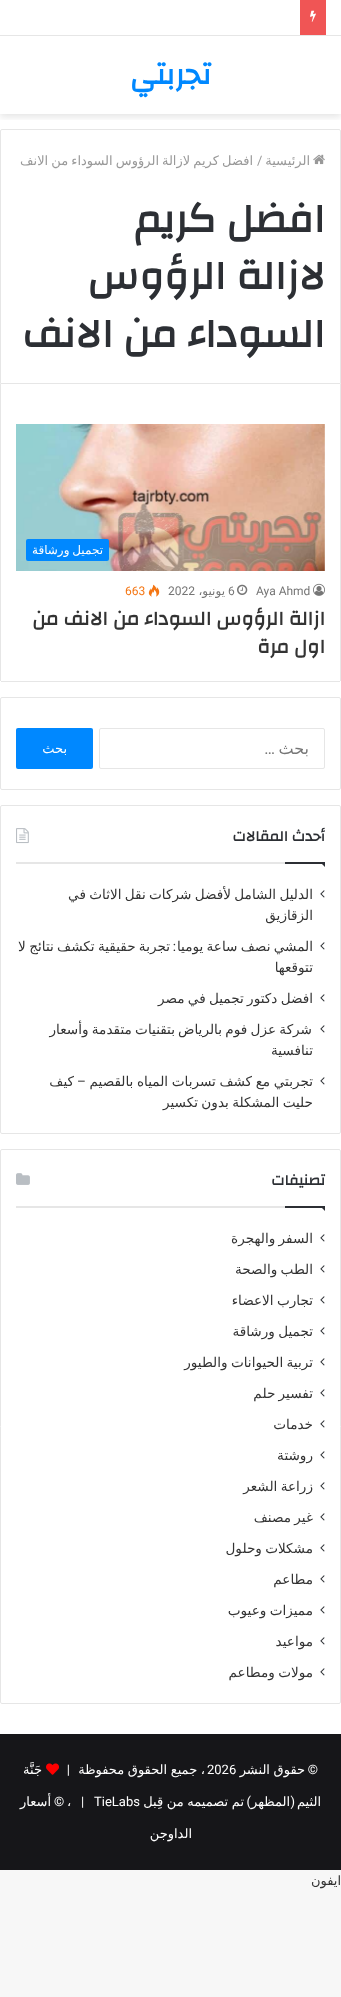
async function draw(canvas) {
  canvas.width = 341;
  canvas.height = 1997;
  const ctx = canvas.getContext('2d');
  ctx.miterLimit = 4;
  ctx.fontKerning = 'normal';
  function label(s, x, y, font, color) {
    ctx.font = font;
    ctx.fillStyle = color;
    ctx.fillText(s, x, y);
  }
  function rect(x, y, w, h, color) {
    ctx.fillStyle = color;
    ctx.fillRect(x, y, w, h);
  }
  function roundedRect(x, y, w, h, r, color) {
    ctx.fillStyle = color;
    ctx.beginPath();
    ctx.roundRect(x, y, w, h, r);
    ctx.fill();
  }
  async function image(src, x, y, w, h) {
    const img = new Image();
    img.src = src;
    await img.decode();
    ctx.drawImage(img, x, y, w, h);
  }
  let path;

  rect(0, 0, 341, 1997, '#f7f7f7');
  rect(0, 36, 341, 1698, '#fff');
  ctx.save();
  ctx.beginPath();
  ctx.rect(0, 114, 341, 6);
  ctx.clip();
  ctx.fillStyle = '#0000001a';
  ctx.filter = 'blur(3.5px)';
  ctx.beginPath();
  ctx.rect(0, 39, 341, 78);
  ctx.fill();
  ctx.filter = 'none';
  ctx.restore();
  rect(0, 0, 341, 35, '#fff');
  rect(0, 35, 341, 1, '#e6e6e6');
  rect(300, 0, 26, 35, '#f05555');
  await image('assets/img1.png', 310, 10, 6, 12);
  ctx.direction = 'rtl';
  label('تجربتي', 211, 84, 'bold 30px Changa', '#08f');
  ctx.beginPath();
  ctx.roundRect(0.5, 129.5, 340, 254, [1.5, 1.5, 0, 0]);
  ctx.strokeStyle = '#e6e6e6';
  ctx.stroke();
  await image('assets/img2.png', 313, 154, 12, 11);
  label('الرئيسية', 310, 165, '13px DejaVu Sans', '#999');
  ctx.direction = 'ltr';
  label('/', 257, 165, '13px Roboto', '#999');
  ctx.wordSpacing = '-1px';
  ctx.direction = 'rtl';
  label('افضل كريم لازالة', 253, 165, '13px DejaVu Sans', '#999');
  label('الرؤوس السوداء من الانف', 159, 165, '13px DejaVu Sans', '#999');
  ctx.wordSpacing = '0px';
  label('افضل كريم', 325, 232, 'bold 41px Changa', '#2c2f34');
  label('لازالة الرؤوس', 325, 289, 'bold 41px Changa', '#2c2f34');
  label('السوداء من الانف', 325, 347, 'bold 41px Changa', '#2c2f34');
  rect(340, 384, 1, 297, '#e6e6e6');
  rect(1, 681, 339, 1, '#e6e6e6');
  rect(0, 384, 1, 297, '#e6e6e6');
  await image('assets/img3.png', 16, 424, 309, 147);
  roundedRect(26, 539, 83, 22, 2, '#08f');
  ctx.wordSpacing = '-1px';
  label('تجميل ورشاقة', 103, 554, '12px DejaVu Sans', '#fff');
  await image('assets/img4.png', 313, 583, 12, 13);
  ctx.wordSpacing = '0px';
  ctx.direction = 'ltr';
  label('Aya Ahmd', 256, 595, '12px Roboto', '#767676');
  await image('assets/img5.png', 237, 584, 11, 11);
  label('6', 228, 595, '12px Roboto', '#767676');
  ctx.direction = 'rtl';
  label('يونيو،', 225, 595, '12px DejaVu Sans', '#767676');
  ctx.direction = 'ltr';
  label('2022', 168, 595, '12px Roboto', '#767676');
  await image('assets/img6.png', 148, 584, 12, 13);
  label('663', 125, 595, '12px Roboto', '#f47512');
  ctx.direction = 'rtl';
  label('ازالة الرؤوس السوداء من الانف من', 325, 625, 'bold 20px Changa', '#333');
  label('اول مرة', 325, 653, 'bold 20px Changa', '#333');
  ctx.beginPath();
  ctx.roundRect(0.5, 697.5, 340, 92, 1.5);
  ctx.stroke();
  ctx.beginPath();
  ctx.roundRect(99.5, 728.5, 225, 40, 1.5);
  ctx.stroke();
  label('بحث', 309, 754, '16px DejaVu Sans', '#767676');
  label('…', 275, 754, '16px Roboto', '#767676');
  roundedRect(16, 728, 77, 41, 2, '#08f');
  label('بحث', 67, 753, '13px DejaVu Sans', '#fff');
  ctx.beginPath();
  ctx.roundRect(0.5, 805.5, 340, 328, 1.5);
  ctx.stroke();
  rect(16, 862, 269, 2, '#e6e6e6');
  label('أحدث المقالات', 325, 841, 'bold 15px Changa', '#2c2f34');
  await image('assets/img7.png', 16, 828, 13, 16);
  path = new Path2D('M320 862H325V867Z');
  ctx.fill(path);
  rect(285, 862, 40, 2, '#2c2f34');
  await image('assets/img8.png', 320, 890, 5, 8);
  ctx.wordSpacing = '-1px';
  label('الدليل الشامل لأفضل شركات نقل الاثاث في', 313, 899, '13.6px DejaVu Sans', '#333');
  ctx.wordSpacing = '0px';
  label('الزقازيق', 313, 920, '13.6px DejaVu Sans', '#333');
  await image('assets/img8.png', 320, 942, 5, 8);
  ctx.wordSpacing = '-1px';
  label('المشي نصف ساعة يوميا', 313, 951, '13.6px DejaVu Sans', '#333');
  label('تجربة حقيقية تكشف نتائج لا', 170, 951, '13.6px DejaVu Sans', '#333');
  ctx.wordSpacing = '0px';
  label(':', 176, 951, '13.6px Roboto', '#333');
  label('تتوقعها', 313, 972, '13.6px DejaVu Sans', '#333');
  await image('assets/img8.png', 320, 994, 5, 8);
  ctx.wordSpacing = '-1px';
  label('افضل دكتور تجميل في مصر', 313, 1003, '13.6px DejaVu Sans', '#333');
  await image('assets/img8.png', 320, 1025, 5, 8);
  label('شركة عزل فوم بالرياض', 312, 1034, '13.6px DejaVu Sans', '#333');
  label('بتقنيات متقدمة وأسعار', 175, 1034, '13.6px DejaVu Sans', '#333');
  ctx.wordSpacing = '0px';
  label('تنافسية', 313, 1055, '13.6px DejaVu Sans', '#333');
  await image('assets/img8.png', 320, 1077, 5, 8);
  ctx.wordSpacing = '-0.75px';
  label('تجربتي مع كشف تسربات المياه بالقصيم', 313, 1086, '13.6px DejaVu Sans', '#333');
  ctx.wordSpacing = '0px';
  label('–', 86, 1086, '13.6px Roboto', '#333');
  label('كيف', 74, 1086, '13.6px DejaVu Sans', '#333');
  ctx.wordSpacing = '-1px';
  label('حليت المشكلة بدون تكسير', 313, 1107, '13.6px DejaVu Sans', '#333');
  ctx.beginPath();
  ctx.roundRect(0.5, 1149.5, 340, 554, 1.5);
  ctx.stroke();
  rect(16, 1206, 269, 2, '#e6e6e6');
  ctx.wordSpacing = '0px';
  label('تصنيفات', 325, 1185, 'bold 15px Changa', '#2c2f34');
  await image('assets/img9.png', 16, 1173, 14, 12);
  path = new Path2D('M320 1206H325V1211Z');
  ctx.fill(path);
  rect(285, 1206, 40, 2, '#2c2f34');
  await image('assets/img8.png', 320, 1234, 5, 8);
  ctx.wordSpacing = '-1px';
  label('السفر والهجرة', 313, 1243, '13.6px DejaVu Sans', '#333');
  await image('assets/img8.png', 320, 1265, 5, 8);
  label('الطب والصحة', 313, 1274, '13.6px DejaVu Sans', '#333');
  await image('assets/img8.png', 320, 1296, 5, 8);
  label('تجارب الاعضاء', 313, 1305, '13.6px DejaVu Sans', '#333');
  await image('assets/img8.png', 320, 1327, 5, 8);
  label('تجميل ورشاقة', 313, 1336, '13.6px DejaVu Sans', '#333');
  await image('assets/img8.png', 320, 1358, 5, 8);
  label('تربية الحيوانات والطيور', 313, 1367, '13.6px DejaVu Sans', '#333');
  await image('assets/img8.png', 320, 1389, 5, 8);
  label('تفسير حلم', 313, 1398, '13.6px DejaVu Sans', '#333');
  await image('assets/img8.png', 320, 1420, 5, 8);
  ctx.wordSpacing = '0px';
  label('خدمات', 313, 1429, '13.6px DejaVu Sans', '#333');
  await image('assets/img8.png', 320, 1451, 5, 8);
  label('روشتة', 313, 1460, '13.6px DejaVu Sans', '#333');
  await image('assets/img8.png', 320, 1482, 5, 8);
  ctx.wordSpacing = '-1px';
  label('زراعة الشعر', 313, 1491, '13.6px DejaVu Sans', '#333');
  await image('assets/img8.png', 320, 1513, 5, 8);
  label('غير مصنف', 313, 1522, '13.6px DejaVu Sans', '#333');
  await image('assets/img8.png', 320, 1544, 5, 8);
  label('مشكلات وحلول', 313, 1553, '13.6px DejaVu Sans', '#333');
  await image('assets/img8.png', 320, 1575, 5, 8);
  ctx.wordSpacing = '0px';
  label('مطاعم', 313, 1584, '13.6px DejaVu Sans', '#333');
  await image('assets/img8.png', 320, 1606, 5, 8);
  ctx.wordSpacing = '-1px';
  label('مميزات وعيوب', 313, 1615, '13.6px DejaVu Sans', '#333');
  await image('assets/img8.png', 320, 1637, 5, 8);
  ctx.wordSpacing = '0px';
  label('مواعيد', 313, 1646, '13.6px DejaVu Sans', '#333');
  await image('assets/img8.png', 320, 1668, 5, 8);
  ctx.wordSpacing = '-1px';
  label('مولات ومطاعم', 313, 1677, '13.6px DejaVu Sans', '#333');
  rect(0, 1734, 341, 136, '#161619');
  ctx.wordSpacing = '0px';
  label('©', 318, 1774, '13px Roboto', '#fff');
  ctx.wordSpacing = '-0.5px';
  label('حقوق النشر', 305, 1774, '13px DejaVu Sans', '#fff');
  ctx.wordSpacing = '0px';
  ctx.direction = 'ltr';
  label('2026', 207, 1774, '13px Roboto', '#fff');
  ctx.wordSpacing = '-0.5px';
  ctx.direction = 'rtl';
  label('، جميع الحقوق محفوظة', 205, 1774, '13px DejaVu Sans', '#fff');
  ctx.wordSpacing = '0px';
  label('|', 70, 1774, '13px Roboto', '#fff');
  await image('assets/img10.png', 46, 1763, 13, 12);
  label('جَنَّة', 42, 1774, '13px DejaVu Sans', '#fff');
  label('الثيم', 321, 1806, '13px DejaVu Sans', '#fff');
  label('(', 295, 1806, '13px Roboto', '#fff');
  label(')', 251, 1806, '13px Roboto', '#fff');
  label('المظهر', 290, 1806, '13px DejaVu Sans', '#fff');
  ctx.wordSpacing = '-0.5px';
  label('تم تصميمه من قِبل', 244, 1806, '13px DejaVu Sans', '#fff');
  ctx.wordSpacing = '0px';
  ctx.direction = 'ltr';
  label('TieLabs', 94, 1806, '13px Roboto', '#fff');
  label('|', 81, 1806, '13px Roboto', '#fff');
  label('،', 67, 1806, '13px DejaVu Sans', '#fff');
  label('©', 54, 1806, '13px Roboto', '#fff');
  ctx.direction = 'rtl';
  label('أسعار', 51, 1806, '13px DejaVu Sans', '#fff');
  label('الداوجن', 192, 1838, '13px DejaVu Sans', '#fff');
  label('ايفون', 341, 1885, '13px DejaVu Sans', '#333');
}

draw(document.querySelector('canvas'));
